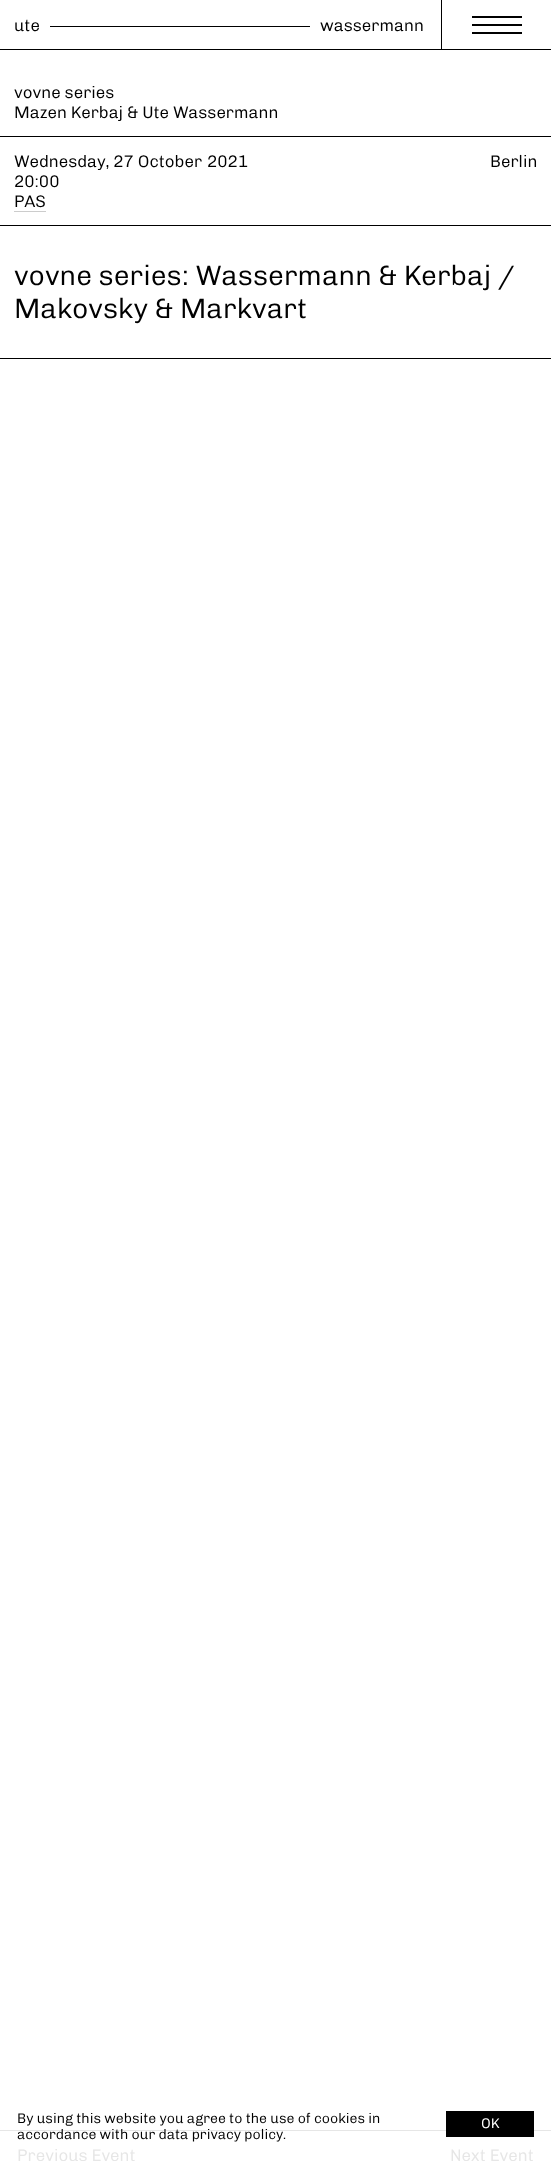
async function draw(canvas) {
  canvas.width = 551;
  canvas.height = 2161;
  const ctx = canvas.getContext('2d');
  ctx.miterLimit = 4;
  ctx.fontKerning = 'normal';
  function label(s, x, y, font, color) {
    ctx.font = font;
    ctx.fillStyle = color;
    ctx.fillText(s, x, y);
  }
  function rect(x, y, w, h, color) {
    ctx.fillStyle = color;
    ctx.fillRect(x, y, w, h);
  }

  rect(0, 0, 551, 2161, '#fff');
  rect(0, 49, 551, 1, '#000');
  label('ute', 14, 31, '300 16.75px Chivo', '#000');
  rect(50, 26, 260, 1, '#000');
  label('wassermann', 320, 31, '300 16.75px Chivo', '#000');
  rect(441, 0, 1, 50, '#000');
  rect(472, 24, 50, 2, '#000');
  rect(472, 16, 50, 2, '#000');
  rect(472, 32, 50, 2, '#000');
  rect(0, 136, 551, 1, '#000');
  label('vovne series', 14, 98, '300 16.75px Chivo', '#000');
  label('Mazen Kerbaj & Ute Wassermann', 14, 118, '300 16.75px Chivo', '#000');
  rect(0, 225, 551, 1, '#000');
  label('Wednesday, 27 October', 14, 167, '300 16.75px Chivo', '#000');
  label('2021', 207, 167, '300 16.75px Chivo', '#000');
  label('20:00', 14, 187, '300 16.75px Chivo', '#000');
  label('PAS', 14, 207, '300 16.75px Chivo', '#000');
  rect(14, 211, 32, 1, '#ccc');
  label('Berlin', 490, 167, '300 16.75px Chivo', '#000');
  label('vovne series: Wassermann & Kerbaj /', 14, 285, '300 28px Chivo', '#000');
  label('Makovsky & Markvart', 14, 318, '300 28px Chivo', '#000');
  rect(0, 358, 551, 1, '#000');
  rect(0, 2130, 551, 1, '#e6e6e6');
  label('Previous Event', 17, 2161, '300 16.75px Chivo', '#e6e6e6');
  label('Next Event', 450, 2161, '300 16.75px Chivo', '#e6e6e6');
  label('By using this website you agree to the use of cookies in', 17, 2123, '300 14px Chivo', '#000');
  label('accordance with our data privacy policy.', 17, 2139, '300 14px Chivo', '#000');
  rect(446, 2111, 88, 26, '#000');
  label('OK', 481, 2128, '300 14px Chivo', '#fff');
}

draw(document.querySelector('canvas'));
